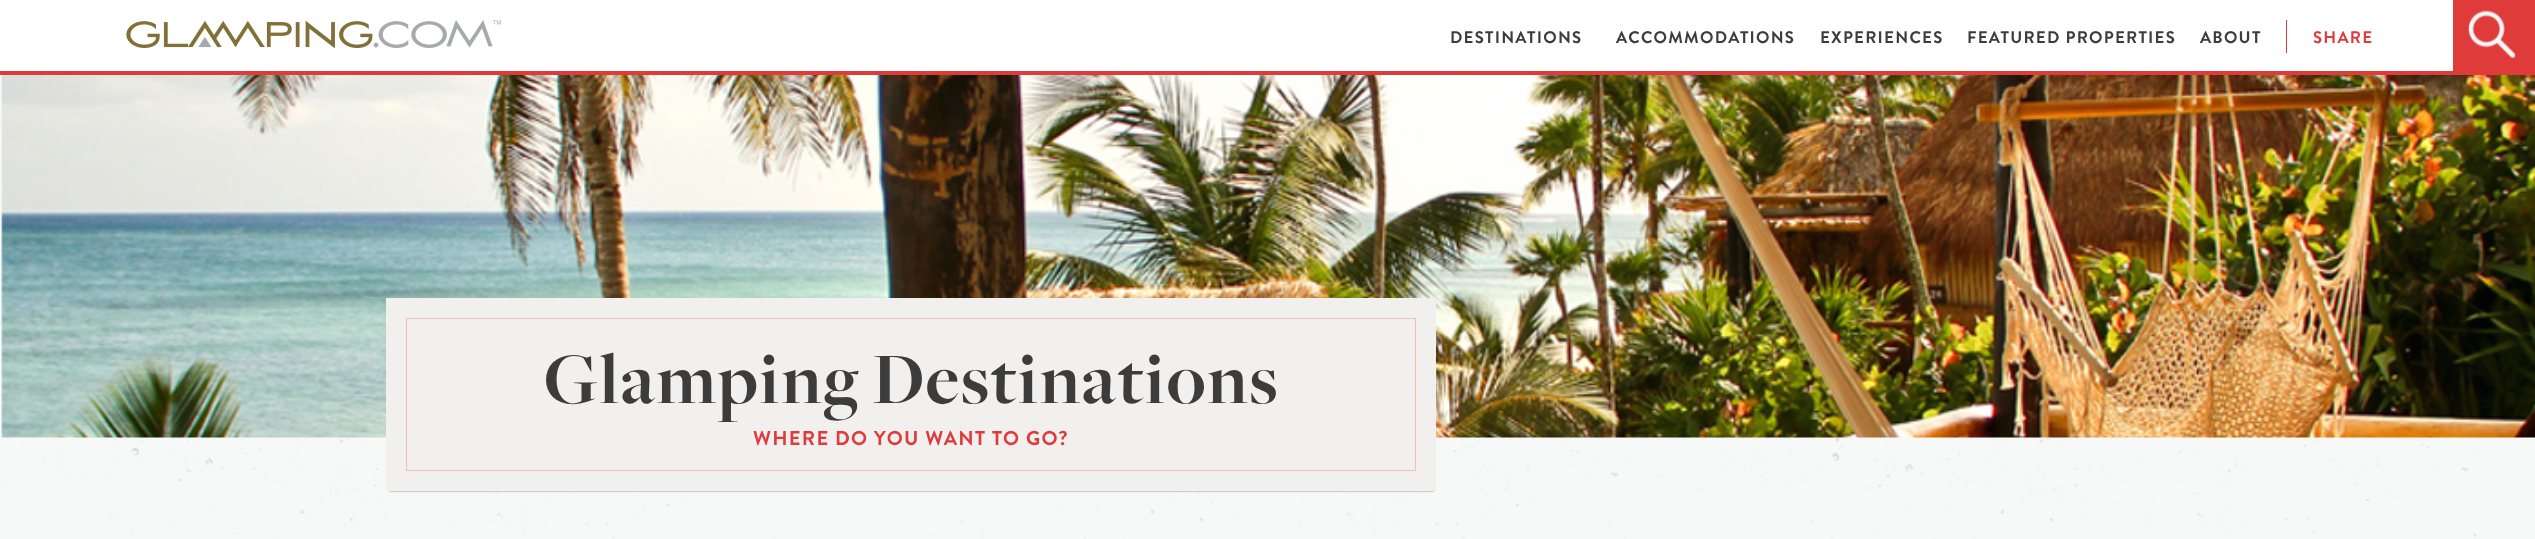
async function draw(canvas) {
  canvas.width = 2535;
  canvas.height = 539;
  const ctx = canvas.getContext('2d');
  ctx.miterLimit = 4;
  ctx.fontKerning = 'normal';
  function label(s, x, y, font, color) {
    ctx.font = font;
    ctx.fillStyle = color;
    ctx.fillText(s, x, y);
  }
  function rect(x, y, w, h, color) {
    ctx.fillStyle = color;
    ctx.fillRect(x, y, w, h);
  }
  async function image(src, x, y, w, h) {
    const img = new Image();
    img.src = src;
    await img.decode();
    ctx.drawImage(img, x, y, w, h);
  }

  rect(0, 0, 2535, 539, '#fff');
  await image('assets/img1.png', 0, 75, 2535, 464);
  rect(0, 71, 2535, 4, '#df3b3b');
  await image('assets/img2.png', 126, 20, 375, 29);
  ctx.letterSpacing = '1.25px';
  label('DESTINATIONS', 1450, 43, 'bold 16.75px Brandon Grotesque', '#3c3c3c');
  label('ACCOMMODATIONS', 1616, 43, 'bold 16.75px Brandon Grotesque', '#3c3c3c');
  label('EXPERIENCES', 1820, 43, 'bold 16.75px Brandon Grotesque', '#3c3c3c');
  label('FEATURED PROPERTIES', 1967, 43, 'bold 16.75px Brandon Grotesque', '#3c3c3c');
  label('ABOUT', 2200, 43, 'bold 16.75px Brandon Grotesque', '#3c3c3c');
  rect(2286, 20, 1, 33, '#df3b3b');
  label('SHARE', 2313, 43, 'bold 16.75px Brandon Grotesque', '#df3b3b');
  rect(2453, 0, 82, 71, '#df3b3b');
  await image('assets/img3.png', 2468, 10, 48, 48);
  await image('assets/img4.png', 1, 75, 2534, 363);
  await image('assets/img5.png', 267, 438, 1984, 101);
  ctx.fillStyle = '#808080';
  ctx.filter = 'blur(1px)';
  ctx.beginPath();
  ctx.rect(389, 303, 1045, 188);
  ctx.fill();
  ctx.filter = 'none';
  rect(386, 298, 1050, 193, '#f1f0ee');
  ctx.strokeStyle = '#ecbfbe';
  ctx.strokeRect(406.5, 318.5, 1009, 152);
  ctx.letterSpacing = '1.9px';
  label('Glamping Destinations', 544, 403, 'bold 75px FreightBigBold', '#3c3c3c');
  ctx.letterSpacing = '1.25px';
  label('WHERE DO YOU WANT TO GO?', 753, 445, 'bold 20px Brandon Grotesque', '#df3b3b');
}

draw(document.querySelector('canvas'));
